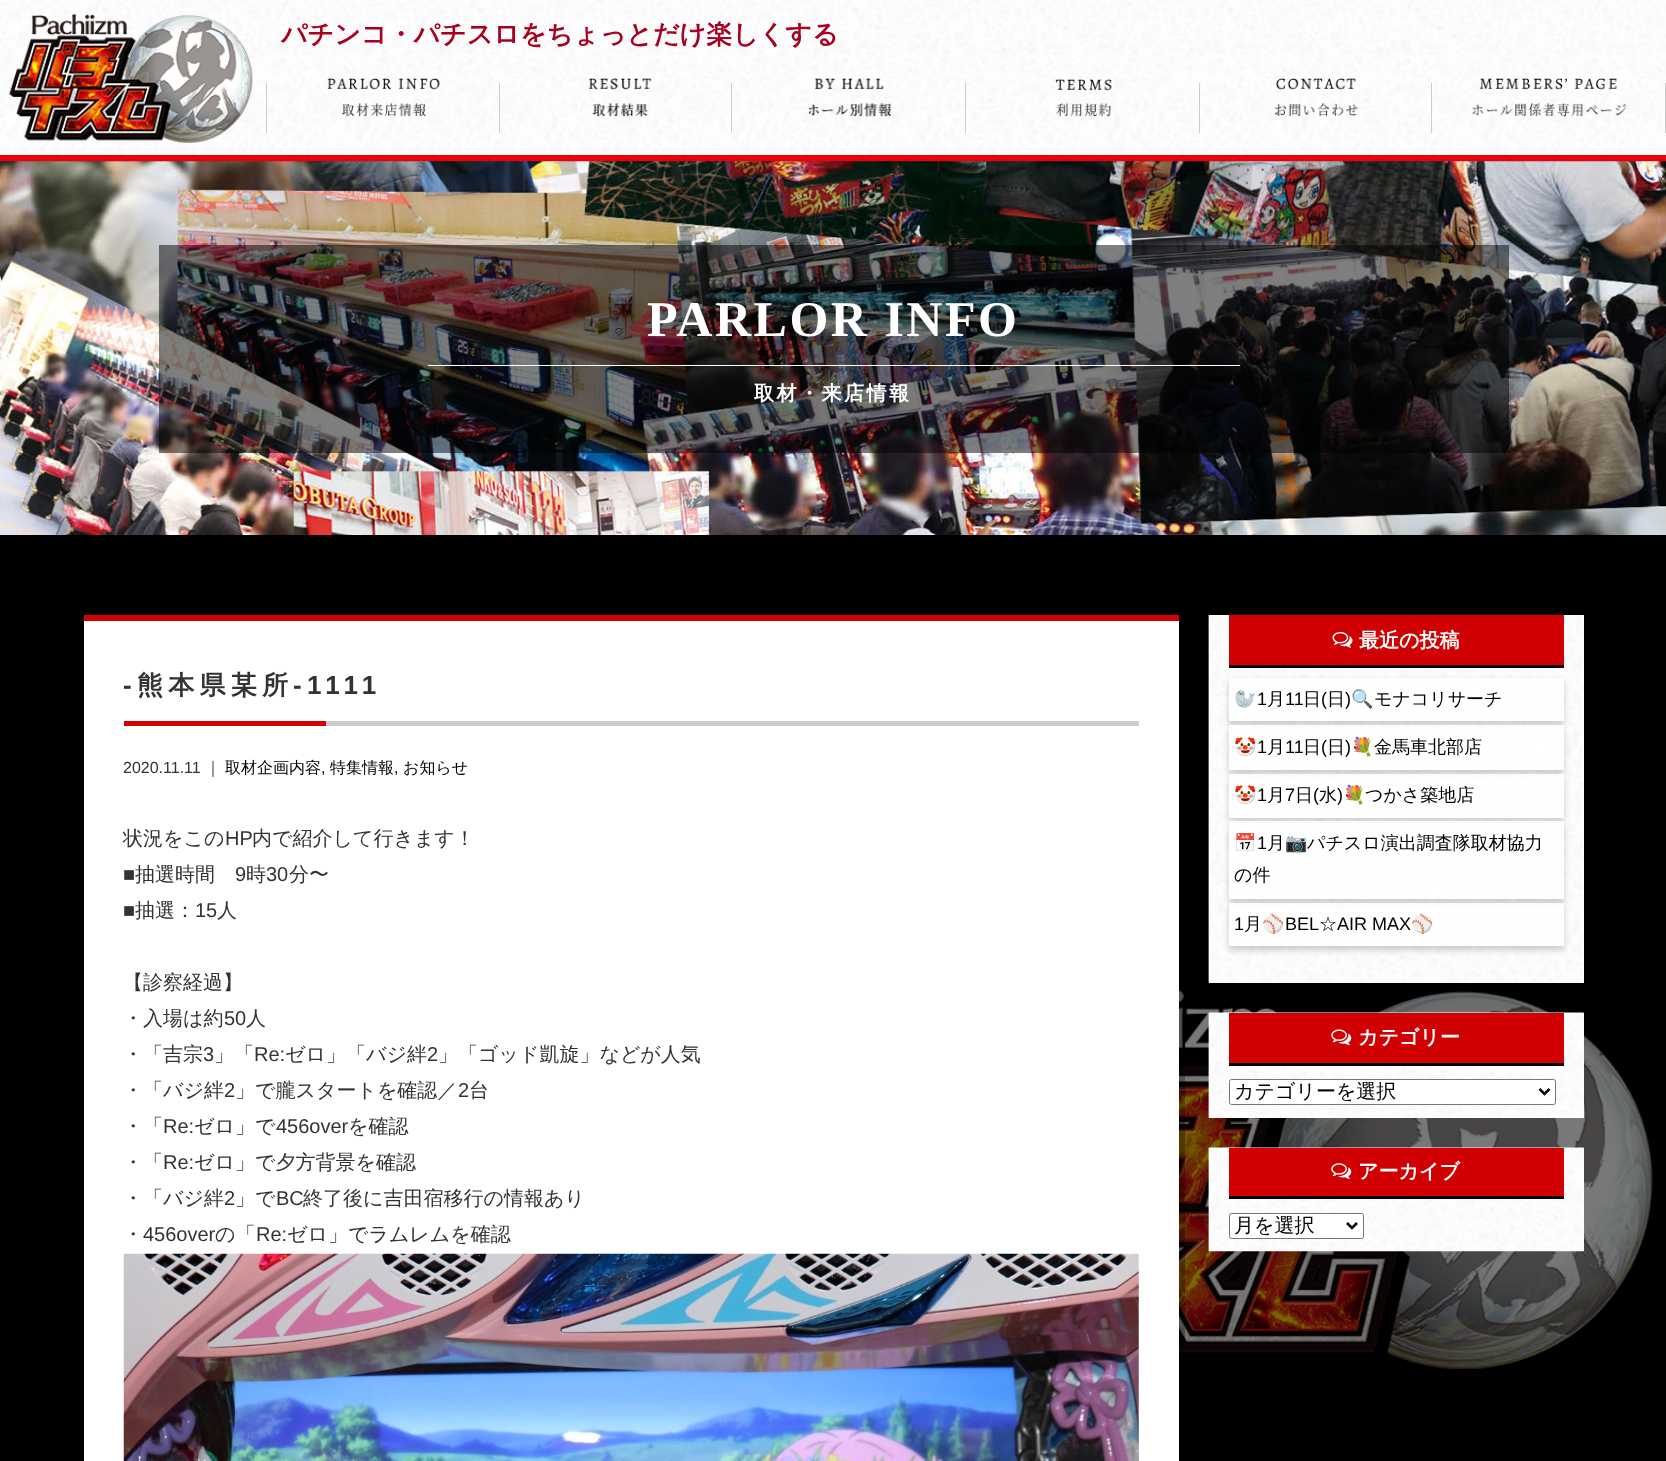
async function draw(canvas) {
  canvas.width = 1666;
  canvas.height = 1461;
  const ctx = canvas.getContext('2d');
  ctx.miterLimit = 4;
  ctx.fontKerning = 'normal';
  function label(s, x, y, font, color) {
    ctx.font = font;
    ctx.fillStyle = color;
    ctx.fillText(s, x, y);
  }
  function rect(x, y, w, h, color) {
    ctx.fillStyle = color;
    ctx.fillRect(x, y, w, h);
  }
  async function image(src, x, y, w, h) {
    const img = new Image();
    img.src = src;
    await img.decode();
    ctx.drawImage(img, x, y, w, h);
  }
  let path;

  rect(0, 0, 1666, 1461, '#000');
  await image('assets/img1.png', 1179, 990, 474, 379);
  await image('assets/img2.png', 0, 0, 1666, 162);
  rect(0, 155, 1666, 6, '#ed000c');
  await image('assets/img3.png', 9, 13, 244, 130);
  label('パチンコ・パチスロをちょっとだけ楽しくする', 281, 43, 'bold 26px WenQuanYi Zen Hei', '#aa001f');
  rect(266, 83, 1, 50, '#ccc');
  await image('assets/img4.png', 327, 78, 113, 39);
  rect(499, 83, 1, 50, '#ccc');
  await image('assets/img5.png', 588, 78, 64, 39);
  rect(731, 83, 1, 50, '#ccc');
  await image('assets/img6.png', 809, 78, 83, 39);
  rect(965, 83, 1, 50, '#ccc');
  await image('assets/img7.png', 1055, 79, 57, 38);
  rect(1199, 83, 1, 50, '#ccc');
  await image('assets/img8.png', 1274, 78, 85, 39);
  rect(1431, 83, 1, 50, '#ccc');
  await image('assets/img9.png', 1472, 78, 155, 39);
  rect(1665, 83, 1, 50, '#ccc');
  await image('assets/img10.png', 0, 161, 1666, 374);
  rect(159, 245, 1350, 208, '#00000080');
  ctx.letterSpacing = '2.5px';
  label('PARLOR INFO', 647, 336, 'bold 50px Liberation Serif', '#fff');
  rect(428, 365, 812, 1, '#fff');
  label('取材・来店情報', 754, 400, 'bold 20px WenQuanYi Zen Hei', '#fff');
  ctx.fillStyle = '#0000004d';
  path = new Path2D('M90 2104V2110H1185V621H1179V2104Z');
  ctx.fill(path);
  rect(84, 621, 1095, 840, '#fff');
  rect(84, 615, 1095, 6, '#d10003');
  rect(326, 721, 813, 5, '#ccc');
  ctx.letterSpacing = '5.25px';
  label('-', 123, 694, 'bold 26px Liberation Sans', '#333');
  label('熊本県某所', 137, 694, 'bold 26px WenQuanYi Zen Hei', '#333');
  label('-1111', 293, 694, 'bold 26px Liberation Sans', '#333');
  rect(124, 721, 202, 5, '#d10003');
  ctx.letterSpacing = '0px';
  label('2020.11.11', 123, 773, '16px Liberation Sans', '#333');
  label('｜', 205, 773, '500 16px WenQuanYi Zen Hei', '#333');
  label('取材企画内容', 225, 773, '500 16px WenQuanYi Zen Hei', '#000');
  label(',', 321, 773, '16px Liberation Sans', '#000');
  label('特集情報', 330, 773, '500 16px WenQuanYi Zen Hei', '#000');
  label(',', 394, 773, '16px Liberation Sans', '#000');
  label('お知らせ', 403, 773, '500 16px WenQuanYi Zen Hei', '#000');
  label('状況をこの', 123, 845, '500 20px WenQuanYi Zen Hei', '#333');
  label('HP', 225, 845, '20px Liberation Sans', '#333');
  label('内で紹介して行きます！', 252, 845, '500 20px WenQuanYi Zen Hei', '#333');
  label('■', 123, 881, '20px Liberation Sans', '#333');
  label('抽選時間', 135, 881, '500 20px WenQuanYi Zen Hei', '#333');
  label('9', 235, 881, '20px Liberation Sans', '#333');
  label('時', 246, 881, '500 20px WenQuanYi Zen Hei', '#333');
  label('30', 266, 881, '20px Liberation Sans', '#333');
  label('分〜', 289, 881, '500 20px WenQuanYi Zen Hei', '#333');
  label('■', 123, 917, '20px Liberation Sans', '#333');
  label('抽選：', 135, 917, '500 20px WenQuanYi Zen Hei', '#333');
  label('15', 195, 917, '20px Liberation Sans', '#333');
  label('人', 217, 917, '500 20px WenQuanYi Zen Hei', '#333');
  label('【診察経過】', 123, 989, '500 20px WenQuanYi Zen Hei', '#333');
  label('・入場は約', 123, 1025, '500 20px WenQuanYi Zen Hei', '#333');
  label('50', 224, 1025, '20px Liberation Sans', '#333');
  label('人', 246, 1025, '500 20px WenQuanYi Zen Hei', '#333');
  label('・「吉宗', 123, 1061, '500 20px WenQuanYi Zen Hei', '#333');
  label('3', 203, 1061, '20px Liberation Sans', '#333');
  label('」「', 214, 1061, '500 20px WenQuanYi Zen Hei', '#333');
  label('Re:', 254, 1061, '20px Liberation Sans', '#333');
  label('ゼロ」「バジ絆', 285, 1061, '500 20px WenQuanYi Zen Hei', '#333');
  label('2', 427, 1061, '20px Liberation Sans', '#333');
  label('」「ゴッド凱旋」などが人気', 438, 1061, '500 20px WenQuanYi Zen Hei', '#333');
  label('・「バジ絆', 123, 1097, '500 20px WenQuanYi Zen Hei', '#333');
  label('2', 224, 1097, '20px Liberation Sans', '#333');
  label('」で朧スタートを確認／', 235, 1097, '500 20px WenQuanYi Zen Hei', '#333');
  label('2', 458, 1097, '20px Liberation Sans', '#333');
  label('台', 469, 1097, '500 20px WenQuanYi Zen Hei', '#333');
  label('・「', 123, 1133, '500 20px WenQuanYi Zen Hei', '#333');
  label('Re:', 163, 1133, '20px Liberation Sans', '#333');
  label('ゼロ」で', 194, 1133, '500 20px WenQuanYi Zen Hei', '#333');
  label('456over', 276, 1133, '20px Liberation Sans', '#333');
  label('を確認', 348, 1133, '500 20px WenQuanYi Zen Hei', '#333');
  label('・「', 123, 1169, '500 20px WenQuanYi Zen Hei', '#333');
  label('Re:', 163, 1169, '20px Liberation Sans', '#333');
  label('ゼロ」で夕方背景を確認', 194, 1169, '500 20px WenQuanYi Zen Hei', '#333');
  label('・「バジ絆', 123, 1205, '500 20px WenQuanYi Zen Hei', '#333');
  label('2', 224, 1205, '20px Liberation Sans', '#333');
  label('」で', 235, 1205, '500 20px WenQuanYi Zen Hei', '#333');
  label('BC', 276, 1205, '20px Liberation Sans', '#333');
  label('終了後に吉田宿移行の情報あり', 303, 1205, '500 20px WenQuanYi Zen Hei', '#333');
  label('・', 123, 1241, '500 20px WenQuanYi Zen Hei', '#333');
  label('456over', 143, 1241, '20px Liberation Sans', '#333');
  label('の「', 215, 1241, '500 20px WenQuanYi Zen Hei', '#333');
  label('Re:', 256, 1241, '20px Liberation Sans', '#333');
  label('ゼロ」でラムレムを確認', 287, 1241, '500 20px WenQuanYi Zen Hei', '#333');
  await image('assets/img11.png', 123, 1253, 1016, 208);
  rect(1209, 615, 375, 368, '#fff');
  await image('assets/img12.png', 1208, 615, 375, 368);
  rect(1229, 615, 335, 50, '#d10003');
  rect(1229, 665, 335, 3, '#000');
  await image('assets/img13.png', 1332, 632, 21, 16);
  label('最近の投稿', 1359, 647, 'bold 20px WenQuanYi Zen Hei', '#fff');
  ctx.save();
  path = new Path2D('M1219 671H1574V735H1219ZM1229 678H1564V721H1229Z');
  ctx.clip(path, 'evenodd');
  ctx.fillStyle = '#00000033';
  ctx.filter = 'blur(3px)';
  ctx.beginPath();
  ctx.rect(1229, 681, 335, 44);
  ctx.fill();
  ctx.filter = 'none';
  ctx.restore();
  rect(1229, 678, 335, 43, '#ffffffcc');
  label('🦭', 1234, 705, '18px Noto Color Emoji', '#000');
  label('1', 1257, 705, '18px Liberation Sans', '#000');
  label('月', 1267, 705, '500 18px WenQuanYi Zen Hei', '#000');
  label('11', 1285, 705, '18px Liberation Sans', '#000');
  label('日', 1303, 705, '500 18px WenQuanYi Zen Hei', '#000');
  label('(', 1321, 705, '18px Liberation Sans', '#000');
  label('日', 1327, 705, '500 18px WenQuanYi Zen Hei', '#000');
  label(')', 1345, 705, '18px Liberation Sans', '#000');
  label('🔍', 1351, 705, '18px Noto Color Emoji', '#000');
  label('モナコリサーチ', 1374, 705, '500 18px WenQuanYi Zen Hei', '#000');
  ctx.save();
  path = new Path2D('M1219 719H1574V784H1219ZM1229 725H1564V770H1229Z');
  ctx.clip(path, 'evenodd');
  ctx.fillStyle = '#00000033';
  ctx.filter = 'blur(3px)';
  ctx.beginPath();
  ctx.rect(1229, 729, 335, 45);
  ctx.fill();
  ctx.filter = 'none';
  ctx.restore();
  rect(1229, 725, 335, 45, '#ffffffcc');
  label('🤡', 1234, 753, '18px Noto Color Emoji', '#000');
  label('1', 1257, 753, '18px Liberation Sans', '#000');
  label('月', 1267, 753, '500 18px WenQuanYi Zen Hei', '#000');
  label('11', 1285, 753, '18px Liberation Sans', '#000');
  label('日', 1303, 753, '500 18px WenQuanYi Zen Hei', '#000');
  label('(', 1321, 753, '18px Liberation Sans', '#000');
  label('日', 1327, 753, '500 18px WenQuanYi Zen Hei', '#000');
  label(')', 1345, 753, '18px Liberation Sans', '#000');
  label('💐', 1351, 753, '18px Noto Color Emoji', '#000');
  label('金馬車北部店', 1374, 753, '500 18px WenQuanYi Zen Hei', '#000');
  ctx.save();
  path = new Path2D('M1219 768H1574V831H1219ZM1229 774H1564V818H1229Z');
  ctx.clip(path, 'evenodd');
  ctx.fillStyle = '#00000033';
  ctx.filter = 'blur(3px)';
  ctx.beginPath();
  ctx.rect(1229, 778, 335, 43);
  ctx.fill();
  ctx.filter = 'none';
  ctx.restore();
  rect(1229, 774, 335, 44, '#ffffffcc');
  label('🤡', 1234, 801, '18px Noto Color Emoji', '#000');
  label('1', 1257, 801, '18px Liberation Sans', '#000');
  label('月', 1267, 801, '500 18px WenQuanYi Zen Hei', '#000');
  label('7', 1285, 801, '18px Liberation Sans', '#000');
  label('日', 1295, 801, '500 18px WenQuanYi Zen Hei', '#000');
  label('(', 1313, 801, '18px Liberation Sans', '#000');
  label('水', 1319, 801, '500 18px WenQuanYi Zen Hei', '#000');
  label(')', 1337, 801, '18px Liberation Sans', '#000');
  label('💐', 1343, 801, '18px Noto Color Emoji', '#000');
  label('つかさ築地店', 1365, 801, '500 18px WenQuanYi Zen Hei', '#000');
  ctx.save();
  path = new Path2D('M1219 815H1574V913H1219ZM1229 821H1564V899H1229Z');
  ctx.clip(path, 'evenodd');
  ctx.fillStyle = '#00000033';
  ctx.filter = 'blur(3px)';
  ctx.beginPath();
  ctx.rect(1229, 825, 335, 78);
  ctx.fill();
  ctx.filter = 'none';
  ctx.restore();
  rect(1229, 821, 335, 78, '#ffffffcc');
  label('📅', 1234, 849, '18px Noto Color Emoji', '#000');
  label('1', 1257, 849, '18px Liberation Sans', '#000');
  label('月', 1267, 849, '500 18px WenQuanYi Zen Hei', '#000');
  label('📷', 1285, 849, '18px Noto Color Emoji', '#000');
  label('パチスロ演出調査隊取材協力', 1307, 849, '500 18px WenQuanYi Zen Hei', '#000');
  label('の件', 1234, 881, '500 18px WenQuanYi Zen Hei', '#000');
  ctx.save();
  path = new Path2D('M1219 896H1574V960H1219ZM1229 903H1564V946H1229Z');
  ctx.clip(path, 'evenodd');
  ctx.fillStyle = '#00000033';
  ctx.filter = 'blur(3px)';
  ctx.beginPath();
  ctx.rect(1229, 906, 335, 44);
  ctx.fill();
  ctx.filter = 'none';
  ctx.restore();
  rect(1229, 903, 335, 43, '#ffffffcc');
  label('1', 1234, 930, '18px Liberation Sans', '#000');
  label('月', 1244, 930, '500 18px WenQuanYi Zen Hei', '#000');
  label('⚾️', 1262, 930, '18px Noto Color Emoji', '#000');
  label('BEL', 1285, 930, '18px Liberation Sans', '#000');
  label('☆', 1319, 930, '500 18px WenQuanYi Zen Hei', '#000');
  label('AIR MAX', 1337, 930, '18px Liberation Sans', '#000');
  label('⚾️', 1411, 930, '18px Noto Color Emoji', '#000');
  rect(1209, 1013, 375, 105, '#fff');
  await image('assets/img14.png', 1208, 1012, 376, 106);
  rect(1229, 1013, 335, 50, '#d10003');
  rect(1229, 1063, 335, 3, '#000');
  await image('assets/img15.png', 1331, 1029, 21, 17);
  label('カテゴリー', 1358, 1044, 'bold 20px WenQuanYi Zen Hei', '#fff');
  ctx.beginPath();
  ctx.roundRect(1229.5, 1079.5, 326, 25, 2);
  ctx.fill();
  ctx.strokeStyle = '#767676';
  ctx.stroke();
  path = new Path2D('M1539.5 1089L1544.5 1094L1549.5 1089');
  ctx.strokeStyle = '#000';
  ctx.lineWidth = 2.5;
  ctx.stroke(path);
  label('カテゴリーを選択', 1234, 1098, '500 20px WenQuanYi Zen Hei', '#000');
  rect(1209, 1148, 375, 103, '#fff');
  await image('assets/img16.png', 1208, 1147, 376, 105);
  rect(1229, 1148, 335, 48, '#d10003');
  rect(1229, 1196, 335, 3, '#000');
  await image('assets/img17.png', 1331, 1163, 21, 16);
  label('アーカイブ', 1358, 1178, 'bold 20px WenQuanYi Zen Hei', '#fff');
  ctx.beginPath();
  ctx.roundRect(1229.5, 1213.5, 134, 25, 2);
  ctx.fill();
  ctx.strokeStyle = '#767676';
  ctx.lineWidth = 1;
  ctx.stroke();
  path = new Path2D('M1347 1223L1352 1228L1357 1223');
  ctx.strokeStyle = '#000';
  ctx.lineWidth = 2.5;
  ctx.stroke(path);
  label('月を選択', 1234, 1232, '500 20px WenQuanYi Zen Hei', '#000');
}

draw(document.querySelector('canvas'));
